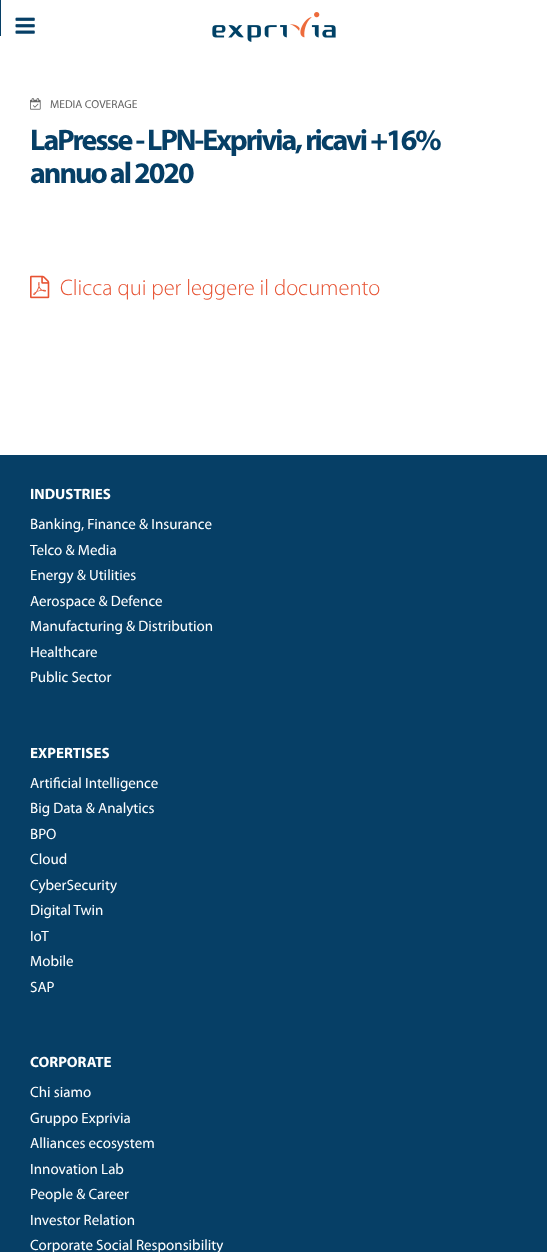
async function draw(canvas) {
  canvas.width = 547;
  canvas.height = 1252;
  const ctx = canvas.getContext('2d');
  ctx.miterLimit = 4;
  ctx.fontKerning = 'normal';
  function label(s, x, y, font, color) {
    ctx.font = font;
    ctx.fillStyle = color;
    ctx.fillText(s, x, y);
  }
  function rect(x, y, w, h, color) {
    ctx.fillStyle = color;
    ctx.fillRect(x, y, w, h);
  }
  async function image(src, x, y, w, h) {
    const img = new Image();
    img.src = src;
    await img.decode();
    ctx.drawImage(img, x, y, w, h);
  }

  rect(0, 0, 547, 1252, '#fff');
  await image('assets/img1.png', 15, 17, 20, 17);
  await image('assets/img2.png', 212, 12, 124, 30);
  rect(0, 0, 1, 36, '#063f66');
  await image('assets/img3.png', 30, 98, 11, 12);
  label('MEDIA COVERAGE', 50, 108, '11.5px Myriad', '#646464');
  ctx.letterSpacing = '-2px';
  label('LaPresse - LPN-Exprivia, ricavi +16%', 30, 150, 'bold 30px Myriad', '#063f66');
  label('annuo al 2020', 30, 183, 'bold 30px Myriad', '#063f66');
  await image('assets/img4.png', 30, 275, 20, 24);
  ctx.letterSpacing = '0px';
  label('Clicca qui per leggere il documento', 60, 295, '300 22.5px Myriad', '#e75333');
  rect(0, 455, 547, 797, '#063f66');
  label('INDUSTRIES', 30, 499, 'bold 15px Myriad', '#fff');
  label('Banking, Finance & Insurance', 30, 529, '15px Myriad', '#fff');
  label('Telco & Media', 30, 555, '15px Myriad', '#fff');
  label('Energy & Utilities', 30, 580, '15px Myriad', '#fff');
  label('Aerospace & Defence', 30, 606, '15px Myriad', '#fff');
  label('Manufacturing & Distribution', 30, 631, '15px Myriad', '#fff');
  label('Healthcare', 30, 657, '15px Myriad', '#fff');
  label('Public Sector', 30, 682, '15px Myriad', '#fff');
  label('EXPERTISES', 30, 758, 'bold 15px Myriad', '#fff');
  label('Artificial Intelligence', 30, 788, '15px Myriad', '#fff');
  label('Big Data & Analytics', 30, 813, '15px Myriad', '#fff');
  label('BPO', 30, 839, '15px Myriad', '#fff');
  label('Cloud', 30, 864, '15px Myriad', '#fff');
  label('CyberSecurity', 30, 890, '15px Myriad', '#fff');
  label('Digital Twin', 30, 915, '15px Myriad', '#fff');
  label('IoT', 30, 941, '15px Myriad', '#fff');
  label('Mobile', 30, 966, '15px Myriad', '#fff');
  label('SAP', 30, 992, '15px Myriad', '#fff');
  label('CORPORATE', 30, 1067, 'bold 15px Myriad', '#fff');
  label('Chi siamo', 30, 1097, '15px Myriad', '#fff');
  label('Gruppo Exprivia', 30, 1123, '15px Myriad', '#fff');
  label('Alliances ecosystem', 30, 1148, '15px Myriad', '#fff');
  label('Innovation Lab', 30, 1174, '15px Myriad', '#fff');
  label('People & Career', 30, 1199, '15px Myriad', '#fff');
  label('Investor Relation', 30, 1225, '15px Myriad', '#fff');
  label('Corporate Social Responsibility', 30, 1250, '15px Myriad', '#fff');
}

draw(document.querySelector('canvas'));
